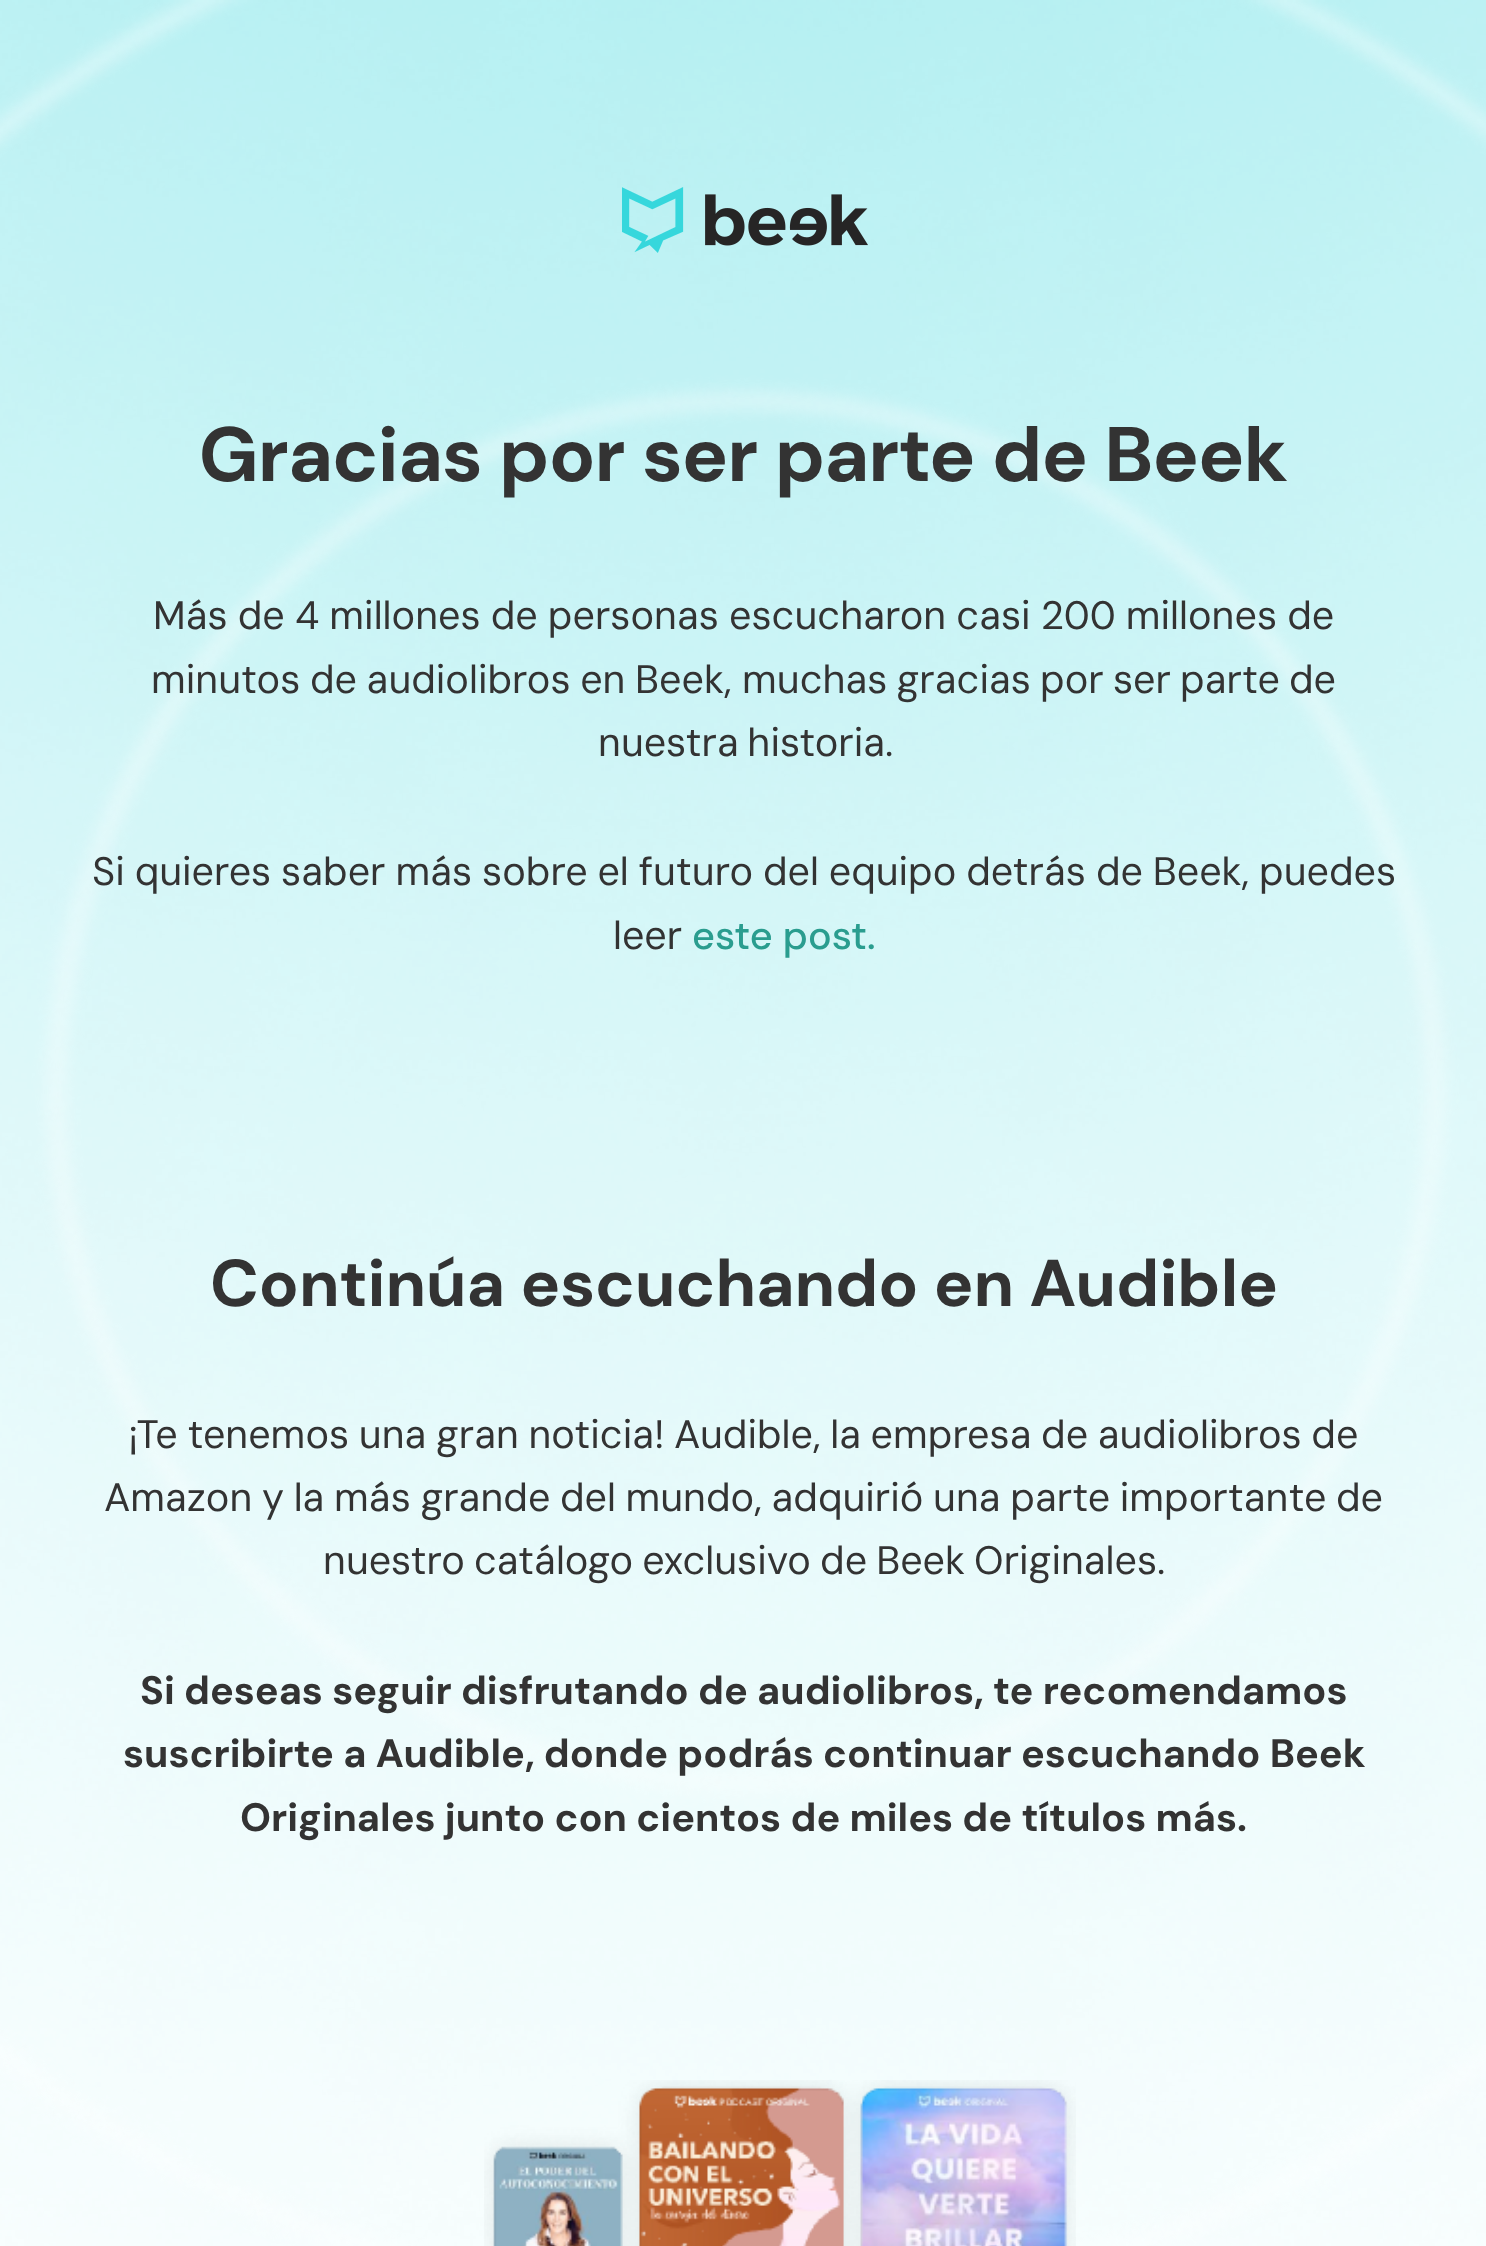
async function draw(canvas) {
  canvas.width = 1486;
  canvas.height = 2246;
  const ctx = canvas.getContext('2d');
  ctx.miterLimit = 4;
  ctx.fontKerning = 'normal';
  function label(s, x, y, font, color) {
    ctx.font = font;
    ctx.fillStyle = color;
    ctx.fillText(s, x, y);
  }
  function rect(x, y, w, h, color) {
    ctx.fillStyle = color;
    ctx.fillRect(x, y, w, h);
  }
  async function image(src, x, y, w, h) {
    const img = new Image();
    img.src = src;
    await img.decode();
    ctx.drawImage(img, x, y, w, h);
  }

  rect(0, 0, 1486, 2246, '#fff');
  await image('assets/img1.png', 0, 0, 1486, 2246);
  await image('assets/img2.png', 622, 187, 246, 66);
  label('Gracias por ser parte de Beek', 199, 481, 'bold 77px DM Sans', '#333');
  ctx.wordSpacing = '-0.5px';
  label('Más de 4 millones de personas escucharon casi 200 millones de', 153, 629, '39.6px DM Sans', '#333');
  ctx.wordSpacing = '-1px';
  label('minutos de audiolibros en Beek,', 151, 693, '39.6px DM Sans', '#333');
  ctx.wordSpacing = '-1.5px';
  label('muchas gracias por ser parte de', 742, 693, '39.6px DM Sans', '#333');
  ctx.wordSpacing = '-2px';
  label('nuestra historia.', 598, 756, '39.6px DM Sans', '#333');
  ctx.wordSpacing = '-0.75px';
  label('Si quieres saber más sobre el futuro del equipo detrás de Beek, puedes', 92, 885, '39.6px DM Sans', '#333');
  ctx.wordSpacing = '0px';
  label('leer', 613, 949, '39.6px DM Sans', '#333');
  label('este post.', 692, 949, '500 39.6px DM Sans', '#2a9d8f');
  label('Continúa escuchando en Audible', 210, 1306, 'bold 66px "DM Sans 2"', '#333');
  ctx.wordSpacing = '-1px';
  label('¡Te tenemos una gran noticia! Audible, la empresa de audiolibros de', 128, 1448, '39.6px DM Sans', '#333');
  label('Amazon y la más grande del mundo, adquirió una parte importante de', 104, 1511, '39.6px DM Sans', '#333');
  ctx.wordSpacing = '-1.5px';
  label('nuestro catálogo exclusivo de Beek Originales.', 323, 1574, '39.6px DM Sans', '#333');
  ctx.wordSpacing = '0px';
  label('Si deseas seguir disfrutando de audiolibros, te recomendamos', 140, 1704, 'bold 39.6px "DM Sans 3"', '#333');
  label('suscribirte a Audible, donde podrás continuar escuchando Beek', 123, 1767, 'bold 39.6px "DM Sans 3"', '#333');
  label('Originales junto con cientos de miles de títulos más.', 240, 1831, 'bold 39.6px "DM Sans 3"', '#333');
  await image('assets/img3.png', 484, 2080, 592, 166);
}

draw(document.querySelector('canvas'));
